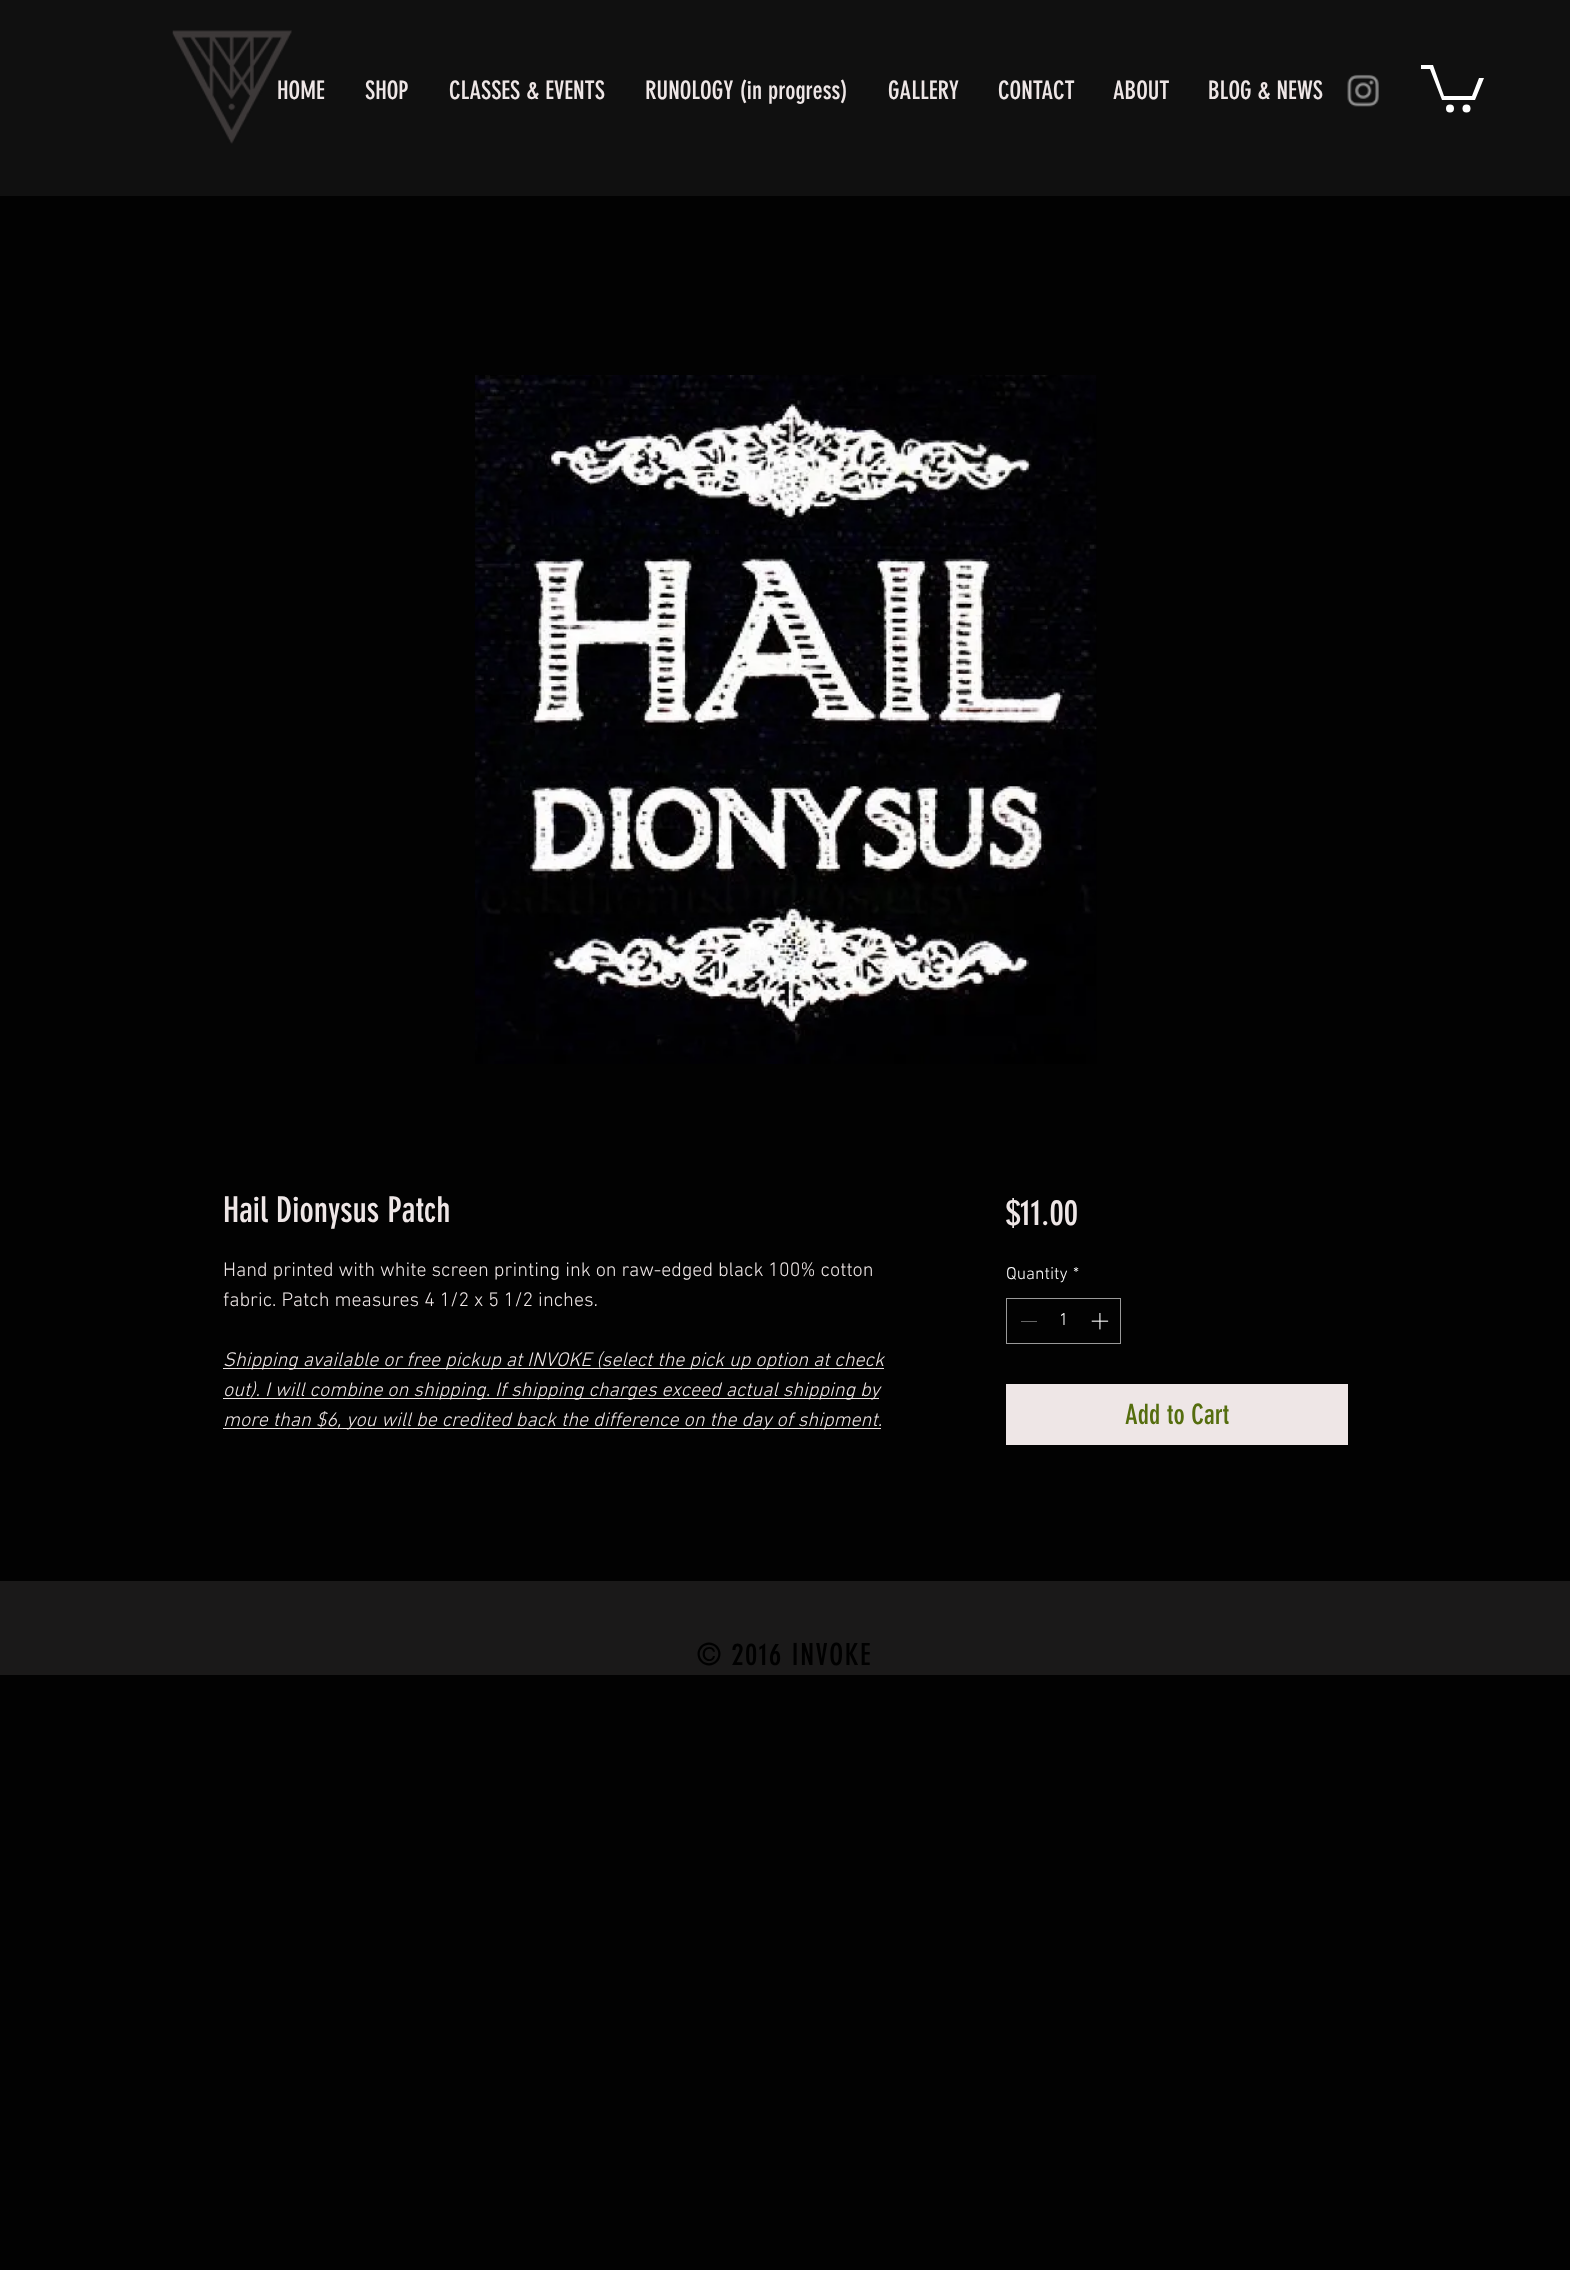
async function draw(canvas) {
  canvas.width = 1570;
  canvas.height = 2270;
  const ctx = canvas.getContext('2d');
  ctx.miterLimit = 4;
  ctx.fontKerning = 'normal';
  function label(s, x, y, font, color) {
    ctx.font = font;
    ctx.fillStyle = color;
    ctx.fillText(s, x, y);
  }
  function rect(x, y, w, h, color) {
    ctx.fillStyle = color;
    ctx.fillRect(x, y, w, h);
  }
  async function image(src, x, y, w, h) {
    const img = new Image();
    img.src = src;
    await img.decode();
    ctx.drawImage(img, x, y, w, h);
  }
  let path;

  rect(0, 0, 1570, 2270, '#020202');
  rect(0, 0, 1570, 196, '#101010');
  await image('assets/img1.png', 172, 30, 120, 114);
  label('HOME', 277, 99, '25px "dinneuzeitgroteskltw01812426"', '#eee6e6');
  label('SHOP', 365, 99, '25px "dinneuzeitgroteskltw01812426"', '#eee6e6');
  label('CLASSES & EVENTS', 449, 99, '25px "dinneuzeitgroteskltw01812426"', '#eee6e6');
  label('RUNOLOGY (in progress)', 645, 99, '25px "dinneuzeitgroteskltw01812426"', '#eee6e6');
  label('GALLERY', 888, 99, '25px "dinneuzeitgroteskltw01812426"', '#eee6e6');
  label('CONTACT', 998, 99, '25px "dinneuzeitgroteskltw01812426"', '#eee6e6');
  label('ABOUT', 1113, 99, '25px "dinneuzeitgroteskltw01812426"', '#eee6e6');
  label('BLOG & NEWS', 1208, 99, '25px "dinneuzeitgroteskltw01812426"', '#eee6e6');
  await image('assets/img2.png', 1347, 74, 32, 33);
  ctx.fillStyle = '#fff';
  path = new Path2D('M1484 78L1475 100H1442L1430 69H1421V65H1433L1444 96H1472L1479 78');
  ctx.fill(path);
  ctx.beginPath();
  ctx.arc(1466.5, 108.5, 4, 0, 2 * Math.PI);
  ctx.fill();
  ctx.beginPath();
  ctx.arc(1450, 108.5, 4, 0, 2 * Math.PI);
  ctx.fill();
  await image('assets/img3.png', 475, 375, 622, 689);
  label('Hail Dionysus Patch', 223, 1222, '35px "dinneuzeitgroteskltw01812426"', '#eee6e6');
  label('Hand printed with white screen printing ink on raw-edged black 100% cotton', 223, 1276, '300 20px "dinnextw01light"', '#eee6e6');
  label('fabric. Patch measures 4 1/2 x 5 1/2 inches.', 223, 1306, '300 20px "dinnextw01light"', '#eee6e6');
  rect(223, 1368, 661, 1, '#eee6e6');
  label('Shipping available or free pickup at INVOKE (select the pick up option at check', 223, 1366, 'italic 300 20px "dinnextw01light"', '#eee6e6');
  rect(223, 1398, 656, 1, '#eee6e6');
  label('out). I will combine on shipping. If shipping charges exceed actual shipping by', 223, 1396, 'italic 300 20px "dinnextw01light"', '#eee6e6');
  rect(223, 1428, 658, 1, '#eee6e6');
  label('more than $6, you will be credited back the difference on the day of shipment.', 223, 1426, 'italic 300 20px "dinnextw01light"', '#eee6e6');
  label('$11.00', 1006, 1225, '35px "dinneuzeitgroteskltw01812426"', '#eee6e6');
  label('Quantity', 1006, 1279, '300 17.5px "dinnextw01light"', '#fff');
  label('*', 1073, 1279, '300 17.5px "dinnextw01light"', '#fff');
  ctx.strokeStyle = '#9a9a9a';
  ctx.strokeRect(1006.5, 1298.5, 114, 45);
  rect(1021, 1321, 16, 1, '#656565');
  label('1', 1059, 1325, '300 17.5px "dinnextw01light"', '#fff');
  await image('assets/img4.png', 1091, 1313, 18, 17);
  rect(1006, 1384, 342, 61, '#eee6e6');
  label('Add to Cart', 1125, 1424, '27.5px "dinneuzeitgroteskltw01812426"', '#556d0e');
  rect(0, 1581, 1570, 94, '#1a1919');
  ctx.letterSpacing = '1.5px';
  label('© 2016 INVOKE', 697, 1665, '30px "dinneuzeitgroteskltw01812426"', '#000');
}

draw(document.querySelector('canvas'));
